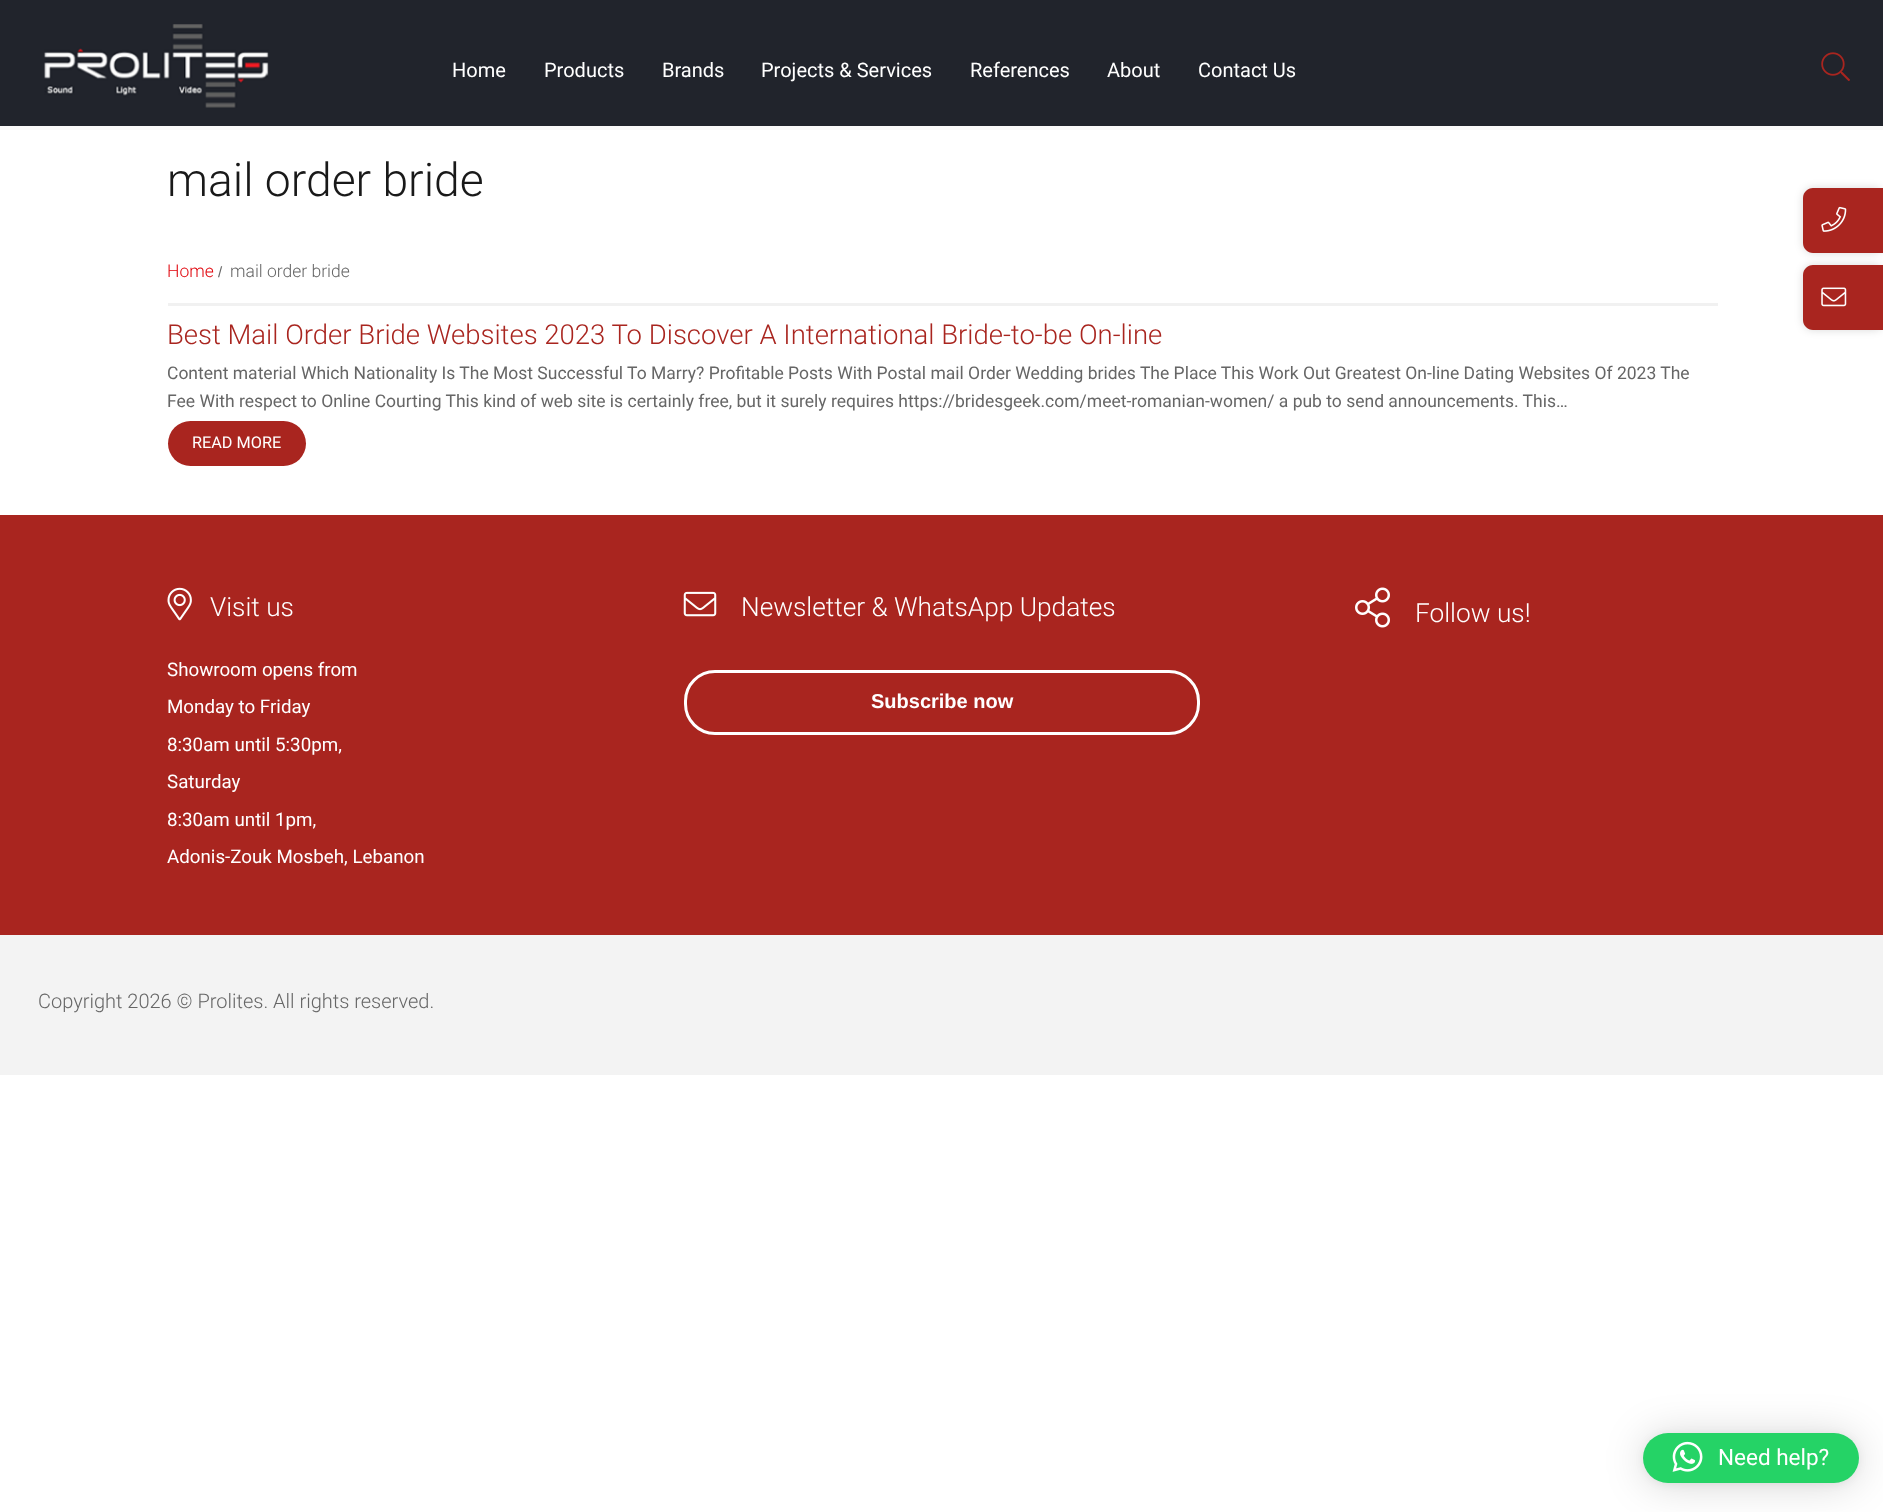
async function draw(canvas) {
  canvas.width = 1883;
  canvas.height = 1512;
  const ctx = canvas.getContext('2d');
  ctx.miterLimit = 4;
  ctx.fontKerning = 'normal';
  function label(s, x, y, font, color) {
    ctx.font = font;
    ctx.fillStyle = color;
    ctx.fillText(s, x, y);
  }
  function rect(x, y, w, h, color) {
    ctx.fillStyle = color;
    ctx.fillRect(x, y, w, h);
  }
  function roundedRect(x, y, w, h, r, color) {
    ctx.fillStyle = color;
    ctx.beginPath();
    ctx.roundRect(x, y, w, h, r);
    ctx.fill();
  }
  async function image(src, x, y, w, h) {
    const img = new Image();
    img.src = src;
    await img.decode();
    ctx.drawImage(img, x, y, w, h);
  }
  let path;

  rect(0, 0, 1883, 1512, '#fff');
  rect(0, 0, 1883, 126, '#21242c');
  rect(0, 126, 1883, 4, '#f9f9f9');
  await image('assets/img1.png', 44, 24, 225, 84);
  label('Home', 452, 77, '20px Roboto', '#fff');
  label('Products', 544, 77, '20px Roboto', '#fff');
  label('Brands', 662, 77, '20px Roboto', '#fff');
  label('Projects & Services', 761, 77, '20px Roboto', '#fff');
  label('References', 970, 77, '20px Roboto', '#fff');
  label('About', 1107, 77, '20px Roboto', '#fff');
  label('Contact Us', 1198, 77, '20px Roboto', '#fff');
  await image('assets/img2.png', 1821, 52, 29, 29);
  label('mail order bride', 167, 196, '300 46.25px Roboto', '#191919');
  rect(168, 303, 1550, 3, '#f1f1f1');
  label('Home', 167, 277, '300 17.5px Roboto', '#e00008');
  label('/', 218, 277, '15px Liberation Sans', '#666');
  label('mail order bride', 230, 277, '300 17.5px Roboto', '#666');
  label('Best Mail Order Bride Websites 2023 To Discover A International Bride-to-be On-line', 167, 344, '300 27.5px Roboto', '#a9251f');
  label('Content material Which Nationality Is The Most Successful To Marry? Profitable Posts With Postal mail Order Wedding brides The Place This Work Out Greatest On-line Dating Websites Of 2023 The', 167, 379, '17.5px Roboto', '#666');
  label('Fee With respect to Online Courting This kind of web site is certainly free, but it surely requires https://bridesgeek.com/meet-romanian-women/ a pub to send announcements. This…', 167, 407, '17.5px Roboto', '#666');
  roundedRect(168, 421, 138, 45, 22.5, '#a9251f');
  label('READ MORE', 192, 448, '16.25px Roboto', '#fff');
  ctx.fillStyle = '#00000026';
  ctx.filter = 'blur(4.5px)';
  ctx.beginPath();
  ctx.roundRect(1803, 188, 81, 65, 10);
  ctx.fill();
  ctx.filter = 'none';
  ctx.fillStyle = '#a9251f';
  path = new Path2D('M1813 188H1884V253H1813C1807.5 253 1803 248.5 1803 243V198C1803 192.5 1807.5 188 1813 188Z');
  ctx.fill(path);
  await image('assets/img3.png', 1821, 206, 26, 26);
  ctx.fillStyle = '#00000026';
  ctx.filter = 'blur(4.5px)';
  ctx.beginPath();
  ctx.roundRect(1803, 265, 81, 65, 10);
  ctx.fill();
  ctx.filter = 'none';
  ctx.fillStyle = '#a9251f';
  path = new Path2D('M1813 265H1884V330H1813C1807.5 330 1803 325.5 1803 320V275C1803 269.5 1807.5 265 1813 265Z');
  ctx.fill(path);
  await image('assets/img4.png', 1821, 287, 26, 20);
  rect(0, 515, 1883, 420, '#a9251f');
  await image('assets/img5.png', 167, 587, 25, 34);
  label('Visit us', 210, 616, '300 26.25px Roboto', '#fff');
  label('Showroom opens from', 167, 676, '18.75px Roboto', '#fff');
  label('Monday to Friday', 167, 713, '18.75px Roboto', '#fff');
  label('8:30am until 5:30pm,', 167, 751, '18.75px Roboto', '#fff');
  label('Saturday', 167, 788, '18.75px Roboto', '#fff');
  label('8:30am until 1pm,', 167, 826, '18.75px Roboto', '#fff');
  label('Adonis-Zouk Mosbeh, Lebanon', 167, 863, '18.75px Roboto', '#fff');
  await image('assets/img6.png', 683, 591, 34, 26);
  label('Newsletter & WhatsApp Updates', 741, 616, '300 26.25px Roboto', '#fff');
  ctx.beginPath();
  ctx.roundRect(685.5, 671.5, 513, 62, 29.5);
  ctx.strokeStyle = '#fff';
  ctx.lineWidth = 3;
  ctx.stroke();
  label('Subscribe now', 871, 708, 'bold 20px Liberation Sans', '#fff');
  await image('assets/img7.png', 1355, 587, 35, 41);
  label('Follow us!', 1415, 622, '300 26.25px Roboto', '#fff');
  rect(0, 935, 1883, 140, '#f3f3f3');
  label('Copyright 2026 © Prolites. All rights reserved.', 38, 1008, '300 20px Roboto', '#666');
  ctx.fillStyle = '#00000029';
  ctx.filter = 'blur(20px)';
  ctx.beginPath();
  ctx.roundRect(1643, 1435, 216, 50, 25);
  ctx.fill();
  ctx.filter = 'none';
  ctx.fillStyle = '#0000000f';
  ctx.filter = 'blur(4px)';
  ctx.beginPath();
  ctx.roundRect(1643, 1434, 216, 50, 25);
  ctx.fill();
  ctx.filter = 'none';
  roundedRect(1643, 1433, 216, 50, 25, '#25d366');
  await image('assets/img8.png', 1672, 1441, 31, 31);
  label('Need help?', 1718, 1465, '22.5px Roboto', '#fff');
}

draw(document.querySelector('canvas'));
